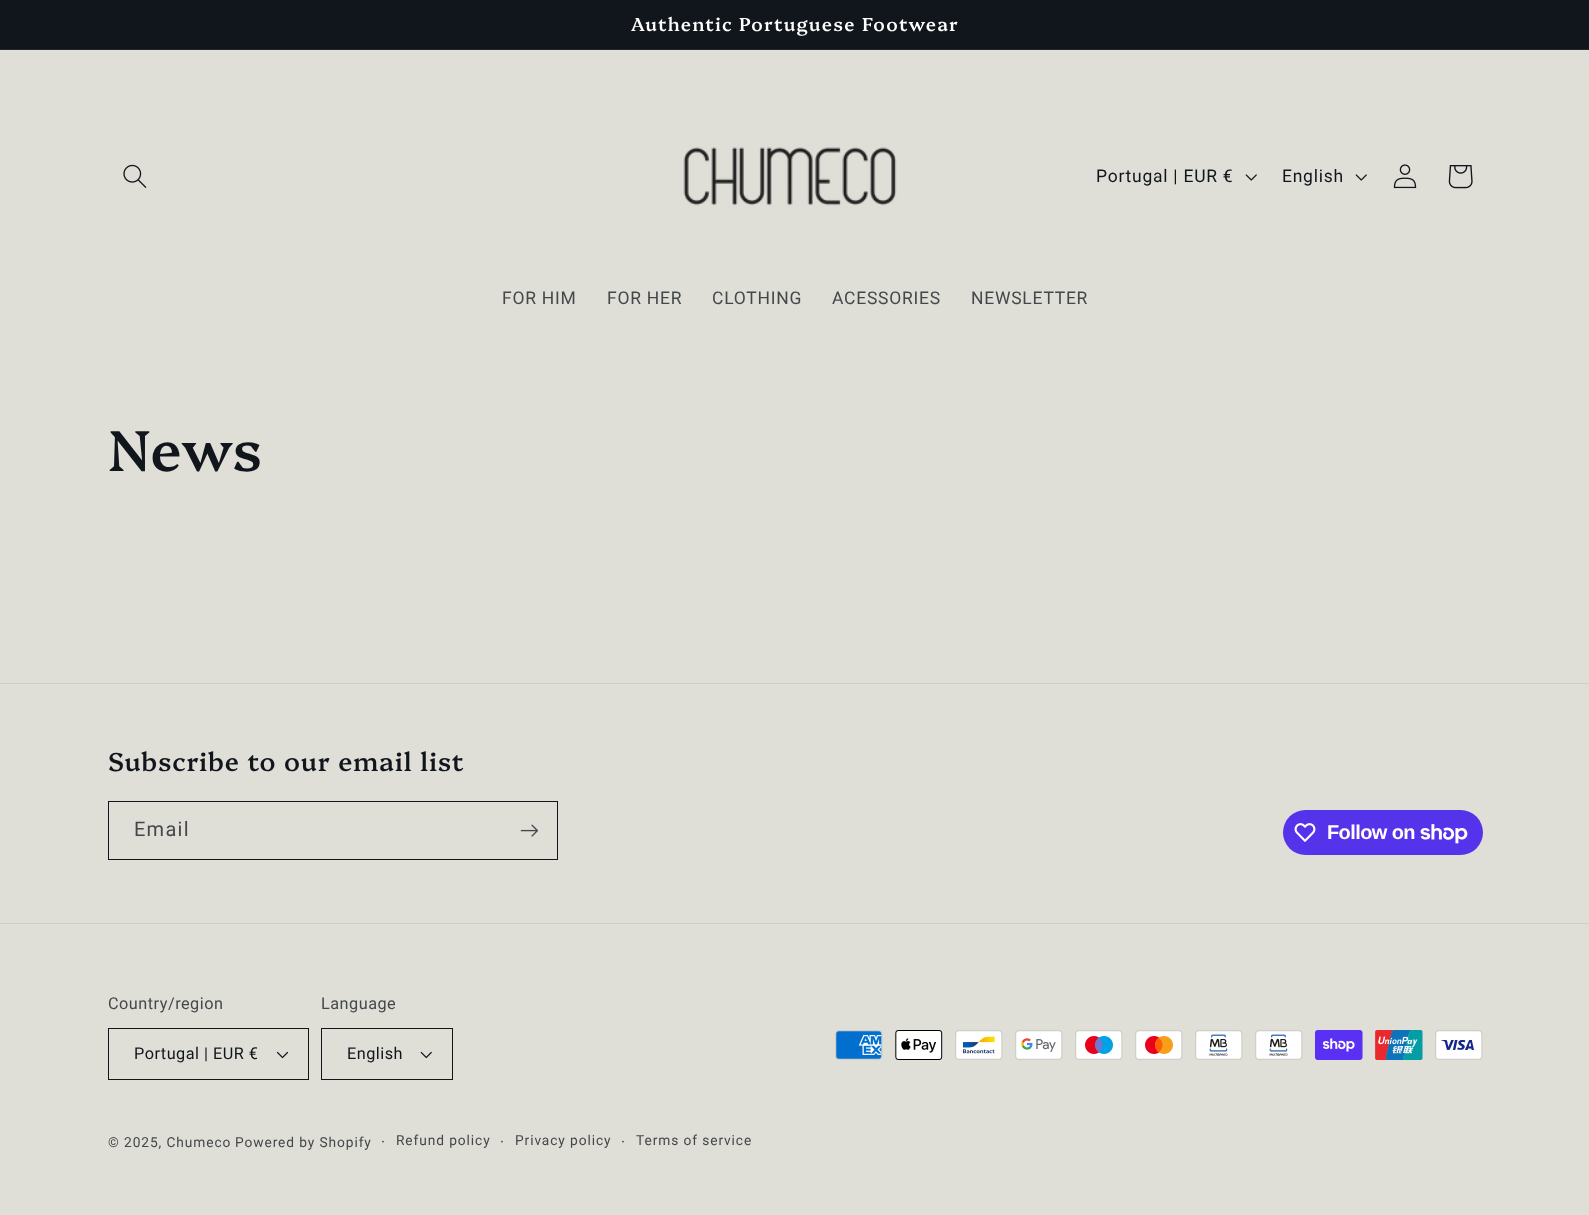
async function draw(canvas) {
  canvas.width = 1589;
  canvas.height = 1215;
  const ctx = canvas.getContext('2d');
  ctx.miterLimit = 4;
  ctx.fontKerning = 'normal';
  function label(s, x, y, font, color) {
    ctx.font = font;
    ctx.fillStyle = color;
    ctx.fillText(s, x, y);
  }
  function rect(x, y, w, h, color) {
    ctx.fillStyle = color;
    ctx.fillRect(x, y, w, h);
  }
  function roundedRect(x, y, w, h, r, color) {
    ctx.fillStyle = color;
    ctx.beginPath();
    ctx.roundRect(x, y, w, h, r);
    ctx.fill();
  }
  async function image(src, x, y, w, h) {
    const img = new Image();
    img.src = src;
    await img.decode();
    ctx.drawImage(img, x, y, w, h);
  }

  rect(0, 0, 1589, 1215, '#dfdfd8');
  rect(0, 0, 1589, 49, '#11151c');
  rect(0, 49, 1589, 1, '#24282e');
  ctx.letterSpacing = '1.25px';
  label('Authentic Portuguese Footwear', 631, 31, '500 18.7px Platypi', '#fff');
  await image('assets/img1.png', 123, 164, 24, 24);
  await image('assets/img2.png', 683, 147, 214, 59);
  ctx.letterSpacing = '0.75px';
  label('Portugal | EUR €', 1096, 182, '17.5px Roboto', '#11151c');
  await image('assets/img3.png', 1245, 174, 12, 7);
  label('English', 1282, 182, '17.5px Roboto', '#11151c');
  await image('assets/img3.png', 1355, 174, 12, 7);
  await image('assets/img4.png', 1393, 164, 24, 25);
  await image('assets/img5.png', 1448, 165, 25, 24);
  label('FOR HIM', 502, 304, '17.5px Roboto', '#45484b');
  label('FOR HER', 607, 304, '17.5px Roboto', '#45484b');
  label('CLOTHING', 712, 304, '17.5px Roboto', '#45484b');
  label('ACESSORIES', 832, 304, '17.5px Roboto', '#45484b');
  label('NEWSLETTER', 971, 304, '17.5px Roboto', '#45484b');
  ctx.letterSpacing = '0.85px';
  label('News', 108, 471, '500 57.5px Platypi', '#11151c');
  rect(0, 683, 1589, 1, '#cfcfc9');
  label('Subscribe to our email list', 108, 771, '500 25.9px Platypi', '#11151c');
  ctx.strokeStyle = '#11151c';
  ctx.strokeRect(108.5, 801.5, 449, 58);
  ctx.letterSpacing = '1.25px';
  label('Email', 134, 836, '20px Roboto', '#45484b');
  await image('assets/img6.png', 520, 824, 18, 13);
  roundedRect(1283, 810, 200, 45, 22.5, '#5433eb');
  await image('assets/img7.png', 1294, 823, 22, 19);
  ctx.letterSpacing = '-0.6px';
  label('Follow on', 1327, 839, 'bold 20px Liberation Sans', '#fff');
  await image('assets/img8.png', 1420, 824, 48, 20);
  rect(0, 923, 1589, 1, '#cfcfc9');
  ctx.letterSpacing = '0.5px';
  label('Country/region', 108, 1009, '16.25px Roboto', '#45484b');
  await image('assets/img9.png', 276, 1051, 13, 8);
  ctx.strokeRect(108.5, 1028.5, 200, 51);
  label('Portugal | EUR €', 134, 1059, '16.25px Roboto', '#11151c');
  label('Language', 321, 1009, '16.25px Roboto', '#45484b');
  await image('assets/img10.png', 420, 1051, 12, 8);
  ctx.strokeRect(321.5, 1028.5, 131, 51);
  label('English', 347, 1059, '16.25px Roboto', '#11151c');
  await image('assets/img11.png', 835, 1030, 48, 30);
  await image('assets/img12.png', 895, 1030, 48, 30);
  await image('assets/img13.png', 955, 1030, 48, 30);
  await image('assets/img14.png', 1015, 1030, 48, 30);
  await image('assets/img15.png', 1075, 1030, 48, 30);
  await image('assets/img16.png', 1135, 1030, 48, 30);
  await image('assets/img17.png', 1195, 1030, 48, 30);
  await image('assets/img17.png', 1255, 1030, 48, 30);
  await image('assets/img18.png', 1315, 1030, 48, 30);
  await image('assets/img19.png', 1375, 1030, 48, 30);
  await image('assets/img20.png', 1435, 1030, 48, 30);
  ctx.letterSpacing = '0.9px';
  label('© 2025, Chumeco', 108, 1147, '13.75px Roboto', '#45484b');
  label('Powered by Shopify', 235, 1147, '13.75px Roboto', '#45484b');
  label('·', 381, 1147, '15px Roboto', '#45484b');
  label('Refund policy', 396, 1145, '13.75px Roboto', '#45484b');
  label('·', 500, 1147, '15px Roboto', '#45484b');
  label('Privacy policy', 515, 1145, '13.75px Roboto', '#45484b');
  label('·', 621, 1147, '15px Roboto', '#45484b');
  label('Terms of service', 636, 1145, '13.75px Roboto', '#45484b');
}

draw(document.querySelector('canvas'));
